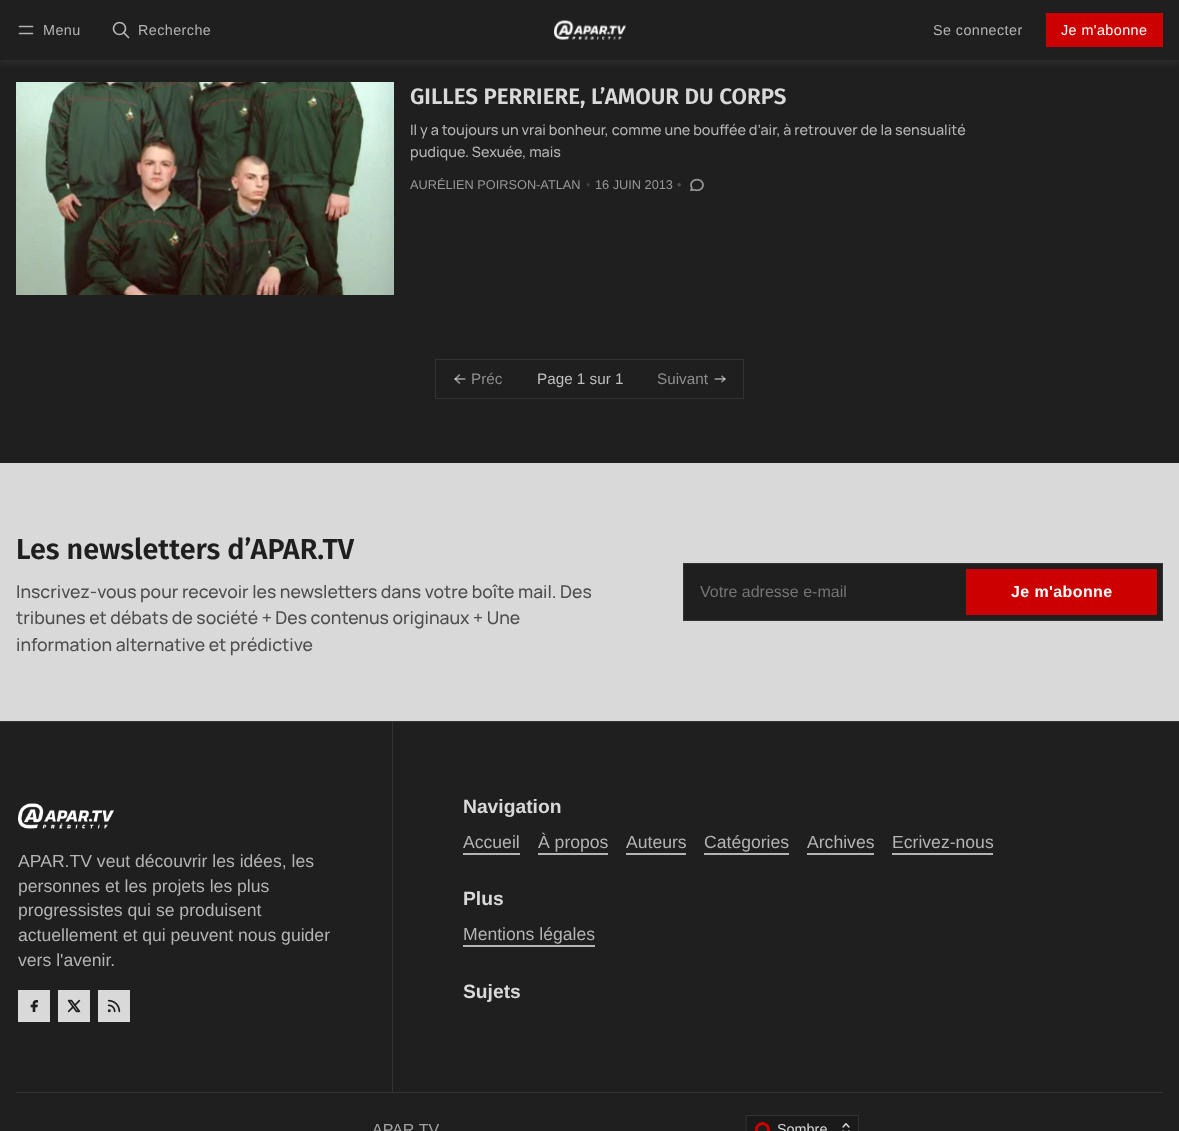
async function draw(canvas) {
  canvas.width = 1179;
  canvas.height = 1131;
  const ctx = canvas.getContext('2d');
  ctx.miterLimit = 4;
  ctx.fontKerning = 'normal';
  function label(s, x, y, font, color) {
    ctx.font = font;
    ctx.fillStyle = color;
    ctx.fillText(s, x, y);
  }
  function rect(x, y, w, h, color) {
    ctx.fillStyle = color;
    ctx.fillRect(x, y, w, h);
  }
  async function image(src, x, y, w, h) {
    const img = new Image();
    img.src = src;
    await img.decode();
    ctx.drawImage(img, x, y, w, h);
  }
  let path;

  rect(0, 0, 1179, 1131, '#1f1f1f');
  ctx.fillStyle = '#ffffff1a';
  ctx.filter = 'blur(5px)';
  ctx.beginPath();
  ctx.rect(-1, -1, 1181, 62);
  ctx.fill();
  ctx.filter = 'none';
  rect(0, 0, 1179, 60, '#1f1f1f');
  path = new Path2D('M19.5 26.5H32.5M19.5 33.5H32.5');
  ctx.strokeStyle = '#b4b4b4';
  ctx.lineWidth = 1.7;
  ctx.lineCap = 'round';
  ctx.lineJoin = 'round';
  ctx.stroke(path);
  ctx.letterSpacing = '0.4px';
  label('Menu', 43, 35, '14.4px Liberation Sans', '#b4b4b4');
  ctx.beginPath();
  ctx.arc(119.5, 28.5, 6, 0, 2 * Math.PI);
  ctx.stroke();
  path = new Path2D('M128.5 37.5L123.5 32.5');
  ctx.stroke(path);
  label('Recherche', 138, 35, '14.4px Liberation Sans', '#b4b4b4');
  await image('assets/img1.png', 554, 19, 72, 21);
  label('Se connecter', 933, 35, '14.4px Liberation Sans', '#b4b4b4');
  rect(1046, 13, 117, 34, '#c00');
  label('Je m\'abonne', 1061, 35, '14.4px Liberation Sans', '#fff');
  await image('assets/img2.png', 16, 82, 378, 213);
  ctx.letterSpacing = '0px';
  label('GILLES PERRIERE, L’AMOUR DU CORPS', 410, 104, '600 22.4px Fira Sans', '#d9d9d9');
  label('Il y a toujours un vrai bonheur, comme une bouffée d’air, à retrouver de la sensualité', 410, 135, '200 14.4px Manrope', '#b4b4b4');
  label('pudique. Sexuée, mais', 410, 157, '200 14.4px Manrope', '#b4b4b4');
  label('AURÉLIEN POIRSON-ATLAN', 410, 189, '12.75px Liberation Sans', '#989898');
  label('•', 586, 189, '12.75px Liberation Sans', '#3d3d3d');
  label('16 JUIN 2013', 595, 189, '12.75px Liberation Sans', '#989898');
  label('•', 677, 189, '12.75px Liberation Sans', '#4e4e4e');
  await image('assets/img3.png', 690, 178, 14, 14);
  ctx.strokeStyle = '#333';
  ctx.lineWidth = 1;
  ctx.lineJoin = 'miter';
  ctx.strokeRect(435.5, 359.5, 308, 39);
  await image('assets/img4.png', 454, 374, 12, 10);
  label('Préc', 471, 384, '15.25px Liberation Sans', '#8e8e8e');
  label('Page 1 sur 1', 537, 384, '15.25px Liberation Sans', '#bfbfbf');
  label('Suivant', 657, 384, '15.25px Liberation Sans', '#8e8e8e');
  await image('assets/img5.png', 714, 375, 12, 8);
  rect(0, 463, 1179, 258, '#d9d9d9');
  label('Les newsletters d’APAR.TV', 16, 559, '600 28.75px Fira Sans', '#1f1f1f');
  label('Inscrivez-vous pour recevoir les newsletters dans votre boîte mail. Des', 16, 598, '200 17.6px Manrope', '#4e4e4e');
  label('tribunes et débats de société + Des contenus originaux + Une', 16, 624, '200 17.6px Manrope', '#4e4e4e');
  label('information alternative et prédictive', 16, 651, '200 17.6px Manrope', '#4e4e4e');
  ctx.strokeRect(683.5, 563.5, 479, 57);
  rect(684, 564, 478, 56, '#1f1f1f');
  label('Votre adresse e-mail', 700, 597, '16px Liberation Sans', '#757575');
  rect(966, 569, 191, 46, '#c00');
  ctx.letterSpacing = '0.4px';
  label('Je m\'abonne', 1011, 597, 'bold 16px Liberation Sans', '#fff');
  rect(0, 721, 1179, 1, '#333');
  rect(392, 722, 1, 370, '#333');
  await image('assets/img6.png', 18, 803, 96, 26);
  ctx.letterSpacing = '0px';
  label('APAR.TV veut découvrir les idées, les', 18, 867, '17.6px Liberation Sans', '#b4b4b4');
  label('personnes et les projets les plus', 18, 892, '17.6px Liberation Sans', '#b4b4b4');
  label('progressistes qui se produisent', 18, 916, '17.6px Liberation Sans', '#b4b4b4');
  label('actuellement et qui peuvent nous guider', 18, 941, '17.6px Liberation Sans', '#b4b4b4');
  label('vers l\'avenir.', 18, 966, '17.6px Liberation Sans', '#b4b4b4');
  rect(18, 990, 32, 32, '#d9d9d9');
  await image('assets/img7.png', 30, 1000, 8, 12);
  rect(58, 990, 32, 32, '#d9d9d9');
  await image('assets/img8.png', 67, 999, 14, 14);
  rect(98, 990, 32, 32, '#d9d9d9');
  await image('assets/img9.png', 107, 999, 14, 14);
  label('Navigation', 463, 813, 'bold 19.25px Liberation Sans', '#d9d9d9');
  rect(463, 853, 57, 2, '#b4b4b4');
  label('Accueil', 463, 848, '17.6px Liberation Sans', '#b4b4b4');
  rect(538, 853, 70, 2, '#b4b4b4');
  label('À propos', 538, 848, '17.6px Liberation Sans', '#b4b4b4');
  rect(626, 853, 60, 2, '#b4b4b4');
  label('Auteurs', 626, 848, '17.6px Liberation Sans', '#b4b4b4');
  rect(704, 853, 85, 2, '#b4b4b4');
  label('Catégories', 704, 848, '17.6px Liberation Sans', '#b4b4b4');
  rect(807, 853, 67, 2, '#b4b4b4');
  label('Archives', 807, 848, '17.6px Liberation Sans', '#b4b4b4');
  rect(892, 853, 101, 2, '#b4b4b4');
  label('Ecrivez-nous', 892, 848, '17.6px Liberation Sans', '#b4b4b4');
  label('Plus', 463, 905, 'bold 19.25px Liberation Sans', '#d9d9d9');
  rect(463, 945, 132, 2, '#b4b4b4');
  label('Mentions légales', 463, 940, '17.6px Liberation Sans', '#b4b4b4');
  label('Sujets', 463, 998, 'bold 19.25px Liberation Sans', '#d9d9d9');
  rect(16, 1092, 1147, 1, '#333');
  label('APAR.TV', 372, 1135, '16px Liberation Sans', '#a1a1a1');
  ctx.fillStyle = '#1a1a1a';
  ctx.beginPath();
  ctx.rect(746.5, 1115.5, 112, 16);
  ctx.fill();
  ctx.stroke();
  ctx.fillStyle = '#1f1f1f';
  ctx.beginPath();
  ctx.arc(762.5, 1129.5, 6, 0, 2 * Math.PI);
  ctx.fill();
  ctx.strokeStyle = '#c00';
  ctx.lineWidth = 3;
  ctx.stroke();
  label('Sombre', 777, 1134, '14.4px Liberation Sans', '#d9d9d9');
  await image('assets/img10.png', 842, 1123, 8, 8);
}

draw(document.querySelector('canvas'));
